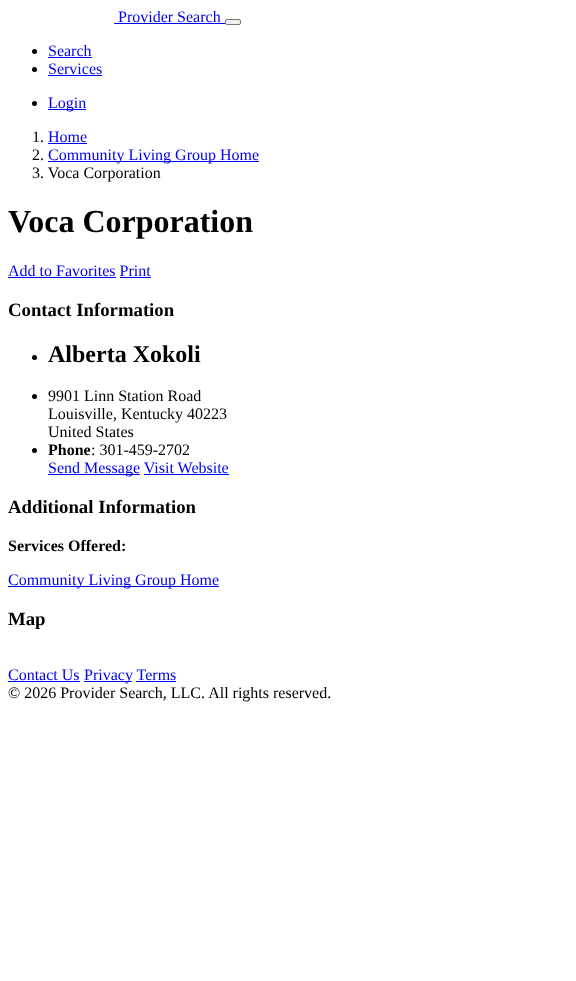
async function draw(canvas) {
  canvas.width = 576;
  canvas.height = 981;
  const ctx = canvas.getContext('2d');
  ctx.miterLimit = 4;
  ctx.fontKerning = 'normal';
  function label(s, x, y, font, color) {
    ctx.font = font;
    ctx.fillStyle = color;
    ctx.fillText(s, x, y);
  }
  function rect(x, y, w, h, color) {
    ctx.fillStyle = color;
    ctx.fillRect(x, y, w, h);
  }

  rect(0, 0, 576, 981, '#fff');
  label('Provider Search', 118, 22, '16px Liberation Serif', '#00e');
  rect(114, 23, 111, 1, '#00e');
  ctx.fillStyle = '#efefef';
  ctx.beginPath();
  ctx.roundRect(225.5, 19.5, 15, 5, 1.5);
  ctx.fill();
  ctx.strokeStyle = '#767676';
  ctx.stroke();
  ctx.fillStyle = '#000';
  ctx.beginPath();
  ctx.arc(34.5, 51.5, 2.5, 0, 2 * Math.PI);
  ctx.fill();
  label('Search', 48, 56, '16px Liberation Serif', '#00e');
  rect(48, 57, 44, 1, '#00e');
  ctx.fillStyle = '#000';
  ctx.beginPath();
  ctx.arc(34.5, 69.5, 2.5, 0, 2 * Math.PI);
  ctx.fill();
  label('Services', 48, 74, '16px Liberation Serif', '#00e');
  rect(48, 75, 54, 1, '#00e');
  ctx.fillStyle = '#000';
  ctx.beginPath();
  ctx.arc(34.5, 103.5, 2.5, 0, 2 * Math.PI);
  ctx.fill();
  rect(48, 109, 38, 1, '#00e');
  label('Login', 48, 108, '16px Liberation Serif', '#00e');
  label('1.', 32, 142, '16px Liberation Serif', '#000');
  label('Home', 48, 142, '16px Liberation Serif', '#00e');
  rect(48, 143, 39, 1, '#00e');
  label('2.', 32, 160, '16px Liberation Serif', '#000');
  rect(48, 161, 211, 1, '#00e');
  label('Community Living Group Home', 48, 160, '16px Liberation Serif', '#00e');
  label('3. Voca Corporation', 32, 178, '16px Liberation Serif', '#000');
  label('Voca Corporation', 8, 232, 'bold 32px Liberation Serif', '#000');
  label('Add to Favorites Print', 8, 276, '16px Liberation Serif', '#00e');
  rect(8, 277, 108, 1, '#00e');
  rect(120, 277, 31, 1, '#00e');
  label('Contact Information', 8, 316, 'bold 18.75px Liberation Serif', '#000');
  ctx.beginPath();
  ctx.arc(34.5, 357.5, 2.5, 0, 2 * Math.PI);
  ctx.fill();
  label('Alberta Xokoli', 48, 362, 'bold 24px Liberation Serif', '#000');
  ctx.beginPath();
  ctx.arc(34.5, 396.5, 2.5, 0, 2 * Math.PI);
  ctx.fill();
  label('9901 Linn Station Road', 48, 401, '16px Liberation Serif', '#000');
  label('Louisville, Kentucky 40223', 48, 419, '16px Liberation Serif', '#000');
  label('United States', 48, 437, '16px Liberation Serif', '#000');
  ctx.beginPath();
  ctx.arc(34.5, 450.5, 2.5, 0, 2 * Math.PI);
  ctx.fill();
  label('Phone', 48, 455, 'bold 16px Liberation Serif', '#000');
  label(': 301-459-2702', 91, 455, '16px Liberation Serif', '#000');
  rect(48, 474, 92, 1, '#00e');
  label('Send Message Visit Website', 48, 473, '16px Liberation Serif', '#00e');
  rect(144, 474, 85, 1, '#00e');
  label('Additional Information', 8, 513, 'bold 18.75px Liberation Serif', '#000');
  label('Services Offered:', 8, 551, 'bold 16px Liberation Serif', '#000');
  rect(8, 586, 211, 1, '#00e');
  label('Community Living Group Home', 8, 585, '16px Liberation Serif', '#00e');
  label('Map', 8, 625, 'bold 18.75px Liberation Serif', '#000');
  label('Contact Us', 8, 680, '16px Liberation Serif', '#00e');
  rect(8, 681, 72, 1, '#00e');
  rect(84, 681, 48, 1, '#00e');
  label('Privacy Terms', 84, 680, '16px Liberation Serif', '#00e');
  rect(136, 681, 40, 1, '#00e');
  label('© 2026 Provider Search, LLC. All rights reserved.', 8, 698, '16px Liberation Serif', '#000');
}

draw(document.querySelector('canvas'));
